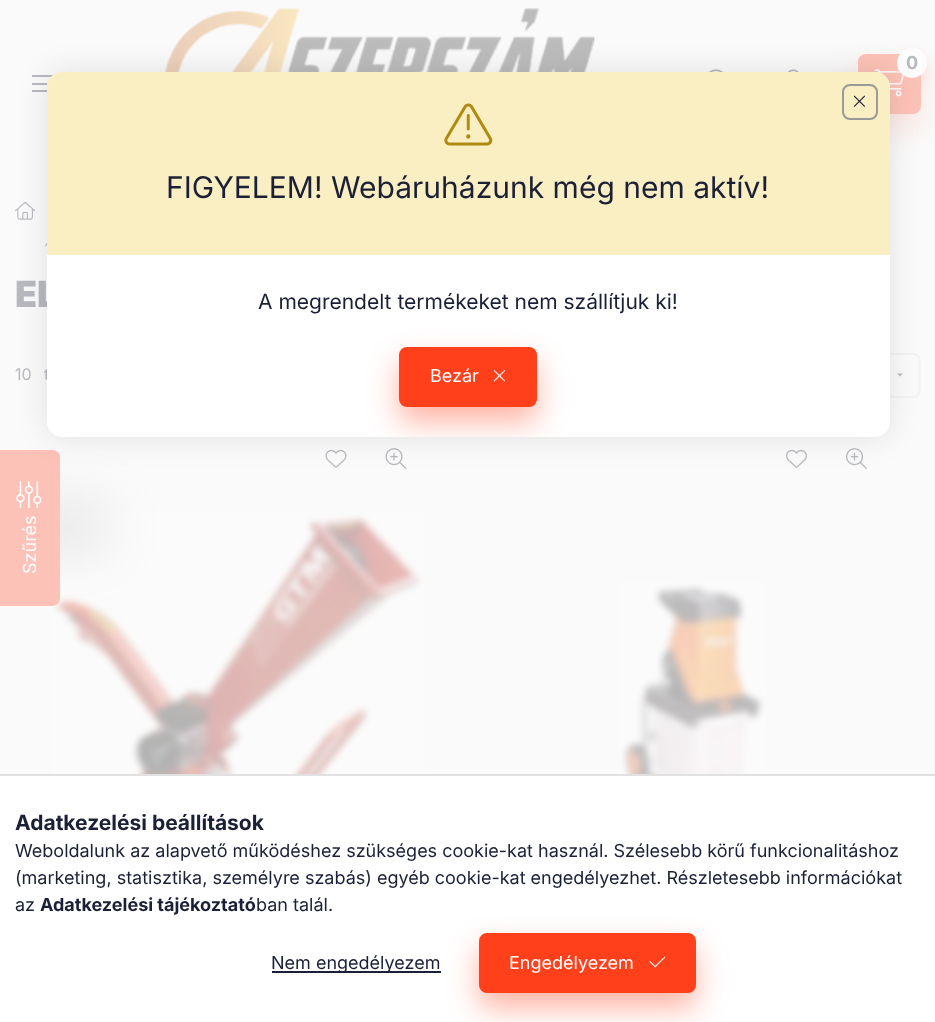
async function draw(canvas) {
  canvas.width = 935;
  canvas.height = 1022;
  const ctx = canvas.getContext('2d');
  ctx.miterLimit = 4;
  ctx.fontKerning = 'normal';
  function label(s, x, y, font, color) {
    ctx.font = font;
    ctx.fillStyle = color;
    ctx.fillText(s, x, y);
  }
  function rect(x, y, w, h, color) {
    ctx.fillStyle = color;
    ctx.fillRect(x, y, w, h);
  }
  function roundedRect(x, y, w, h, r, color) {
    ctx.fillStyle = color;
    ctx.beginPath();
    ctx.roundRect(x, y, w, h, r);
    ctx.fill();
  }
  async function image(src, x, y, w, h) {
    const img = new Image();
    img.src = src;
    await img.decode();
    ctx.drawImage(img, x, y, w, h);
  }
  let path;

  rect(0, 0, 935, 1022, '#fafafa');
  await image('assets/img1.png', 164, 8, 431, 64);
  rect(32, 75, 21, 2, '#b7b9bf');
  rect(32, 83, 21, 2, '#b7b9bf');
  rect(32, 90, 21, 2, '#b7b9bf');
  ctx.fillStyle = '#fcc2b766';
  ctx.filter = 'blur(15px)';
  ctx.beginPath();
  ctx.roundRect(858, 69, 63, 60, 8);
  ctx.fill();
  ctx.filter = 'none';
  roundedRect(858, 54, 63, 60, 8, '#fcc2b7');
  await image('assets/img2.png', 874, 69, 31, 28);
  ctx.fillStyle = '#fcc2b766';
  ctx.filter = 'blur(7.5px)';
  ctx.beginPath();
  ctx.roundRect(897, 56, 30, 30, 15);
  ctx.fill();
  ctx.filter = 'none';
  ctx.fillStyle = '#fcfcfc';
  ctx.beginPath();
  ctx.arc(912, 63, 15, 0, 2 * Math.PI);
  ctx.fill();
  label('0', 906, 69, 'bold 18px Inter', '#b7b9bf');
  await image('assets/img3.png', 709, 69, 14, 3);
  await image('assets/img4.png', 788, 69, 11, 3);
  await image('assets/img5.png', 15, 201, 21, 19);
  await image('assets/img6.png', 45, 242, 2, 5);
  label('EL', 15, 307, '900 36px Inter', '#b7b9bf');
  label('10', 15, 380, '16px Inter', '#b7b9bf');
  label('t', 44, 380, '16px Inter', '#b7b9bf');
  ctx.beginPath();
  ctx.roundRect(705, 354, 215, 43, 7);
  ctx.strokeStyle = '#f3f3f3';
  ctx.lineWidth = 2;
  ctx.stroke();
  path = new Path2D('M897 373.5H903L900 376.5Z');
  ctx.fill(path);
  await image('assets/img7.png', 325, 449, 22, 19);
  await image('assets/img8.png', 385, 448, 22, 22);
  await image('assets/img9.png', 51, 512, 374, 262);
  await image('assets/img10.png', 786, 449, 21, 19);
  await image('assets/img11.png', 846, 448, 21, 22);
  await image('assets/img12.png', 619, 582, 147, 192);
  ctx.fillStyle = '#afafaf33';
  ctx.filter = 'blur(22.5px)';
  ctx.beginPath();
  ctx.roundRect(-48, 498, 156, 60, 8);
  ctx.fill();
  ctx.filter = 'none';
  ctx.fillStyle = '#fcc2b7';
  path = new Path2D('M0 606V450H52C57 450 60 453 60 458V598C60 602 57 606 52 606Z');
  ctx.fill(path);
  await image('assets/img13.png', 16, 481, 26, 28);
  ctx.font = '18px Inter';
  ctx.fillStyle = '#fcfcfc';
  ctx.save();
  ctx.translate(36, 574);
  ctx.rotate(-90 * Math.PI / 180);
  ctx.fillText('Szűrés', 0, 0);
  ctx.restore();
  ctx.fillStyle = '#0000001a';
  ctx.filter = 'blur(15px)';
  ctx.beginPath();
  ctx.roundRect(47, 72, 843, 365, 15);
  ctx.fill();
  ctx.filter = 'none';
  roundedRect(47, 72, 843, 365, 15, '#fff');
  ctx.fillStyle = '#faeec3';
  ctx.beginPath();
  ctx.roundRect(47, 72, 843, 183, [15, 15, 0, 0]);
  ctx.fill();
  ctx.beginPath();
  ctx.roundRect(843, 85, 34, 34, 7);
  ctx.strokeStyle = '#999';
  ctx.stroke();
  await image('assets/img14.png', 853, 95, 12, 12);
  await image('assets/img15.png', 444, 103, 49, 43);
  label('FIGYELEM! Webáruházunk még nem aktív!', 166, 198, '30px Inter', '#1b2036');
  label('A megrendelt termékeket nem szállítjuk ki!', 258, 309, '21px Inter', '#1b2036');
  ctx.save();
  ctx.beginPath();
  ctx.roundRect(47, 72, 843, 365, 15);
  ctx.clip();
  ctx.fillStyle = '#ff401b66';
  ctx.filter = 'blur(15px)';
  ctx.beginPath();
  ctx.roundRect(399, 362, 138, 60, 8);
  ctx.fill();
  ctx.filter = 'none';
  ctx.restore();
  ctx.fillStyle = '#ff401b';
  ctx.beginPath();
  ctx.roundRect(400, 348, 136, 58, 7);
  ctx.fill();
  ctx.strokeStyle = '#ff401b';
  ctx.stroke();
  label('Bezár', 430, 382, '18px Inter', '#fcfcfc');
  await image('assets/img16.png', 493, 370, 12, 12);
  rect(0, 776, 935, 246, '#fff');
  rect(0, 774, 935, 2, '#e1e1e1');
  label('Adatkezelési beállítások', 15, 830, 'bold 21px Inter', '#1b2036');
  label('Weboldalunk az alapvető működéshez szükséges cookie-kat használ. Szélesebb körű funkcionalitáshoz', 15, 857, '18px Inter', '#1b2036');
  label('(marketing, statisztika, személyre szabás) egyéb cookie-kat engedélyezhet. Részletesebb információkat', 15, 884, '18px Inter', '#1b2036');
  label('az', 15, 911, '18px Inter', '#1b2036');
  label('Adatkezelési tájékoztató', 40, 911, 'bold 18px Inter', '#1b2036');
  label('ban talál.', 256, 911, '18px Inter', '#1b2036');
  rect(272, 971, 169, 2, '#1b2036');
  label('Nem engedélyezem', 271, 969, '18px Inter', '#1b2036');
  ctx.fillStyle = '#ff401b66';
  ctx.filter = 'blur(15px)';
  ctx.beginPath();
  ctx.roundRect(479, 948, 217, 60, 8);
  ctx.fill();
  ctx.filter = 'none';
  ctx.fillStyle = '#ff401b';
  ctx.beginPath();
  ctx.roundRect(480, 934, 215, 58, 7);
  ctx.fill();
  ctx.stroke();
  label('Engedélyezem', 509, 969, '18px Inter', '#fcfcfc');
  await image('assets/img17.png', 649, 956, 17, 12);
}

draw(document.querySelector('canvas'));
